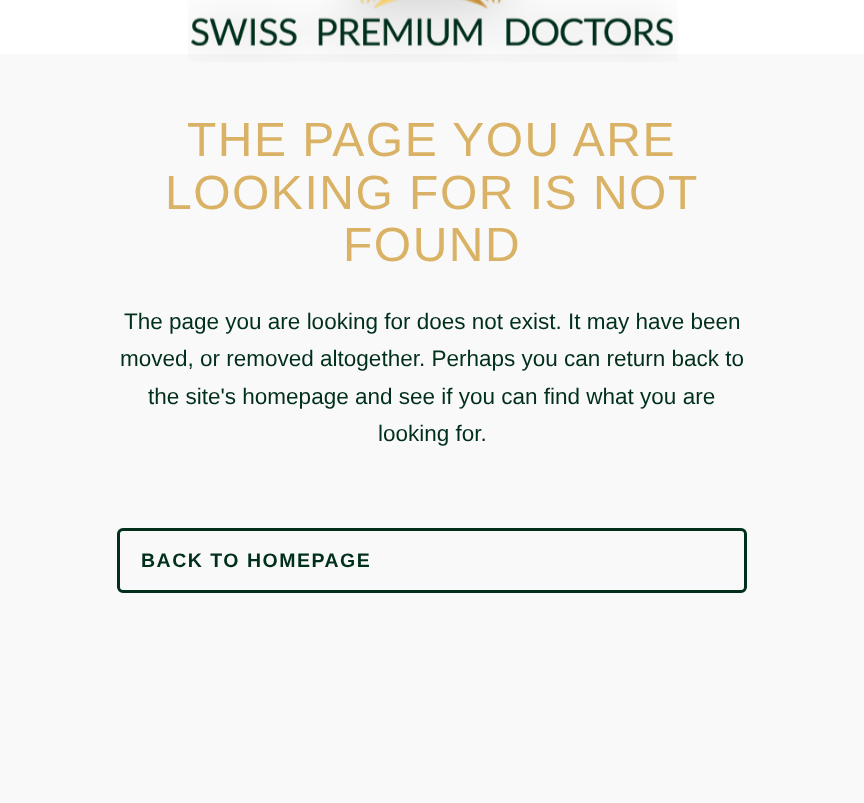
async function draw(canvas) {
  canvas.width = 864;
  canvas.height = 803;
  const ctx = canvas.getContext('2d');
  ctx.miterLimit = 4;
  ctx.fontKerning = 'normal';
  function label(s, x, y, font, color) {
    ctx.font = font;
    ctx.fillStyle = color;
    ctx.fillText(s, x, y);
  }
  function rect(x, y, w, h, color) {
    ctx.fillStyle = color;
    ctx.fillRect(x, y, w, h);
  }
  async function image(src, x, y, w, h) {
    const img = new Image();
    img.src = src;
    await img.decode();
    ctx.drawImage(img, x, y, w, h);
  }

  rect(0, 0, 864, 803, '#f9f9f9');
  rect(0, 0, 864, 54, '#fff');
  await image('assets/img1.png', 188, 0, 490, 62);
  ctx.letterSpacing = '1.5px';
  label('THE PAGE YOU ARE', 187, 156, '48px Liberation Sans', '#d9b266');
  label('LOOKING FOR IS NOT', 165, 209, '48px Liberation Sans', '#d9b266');
  label('FOUND', 343, 261, '48px Liberation Sans', '#d9b266');
  ctx.letterSpacing = '0px';
  label('The page you are looking for does not exist. It may have been', 124, 329, '22.5px Liberation Sans', '#002f1b');
  label('moved, or removed altogether. Perhaps you can return back to', 120, 366, '22.5px Liberation Sans', '#002f1b');
  label('the site\'s homepage and see if you can find what you are', 148, 404, '22.5px Liberation Sans', '#002f1b');
  label('looking for.', 378, 441, '22.5px Liberation Sans', '#002f1b');
  ctx.beginPath();
  ctx.roundRect(118.5, 529.5, 627, 62, 4.5);
  ctx.strokeStyle = '#002f1b';
  ctx.lineWidth = 3;
  ctx.stroke();
  ctx.letterSpacing = '1.5px';
  label('BACK TO HOMEPAGE', 141, 567, 'bold 19.5px Liberation Sans', '#002f1b');
}

draw(document.querySelector('canvas'));
